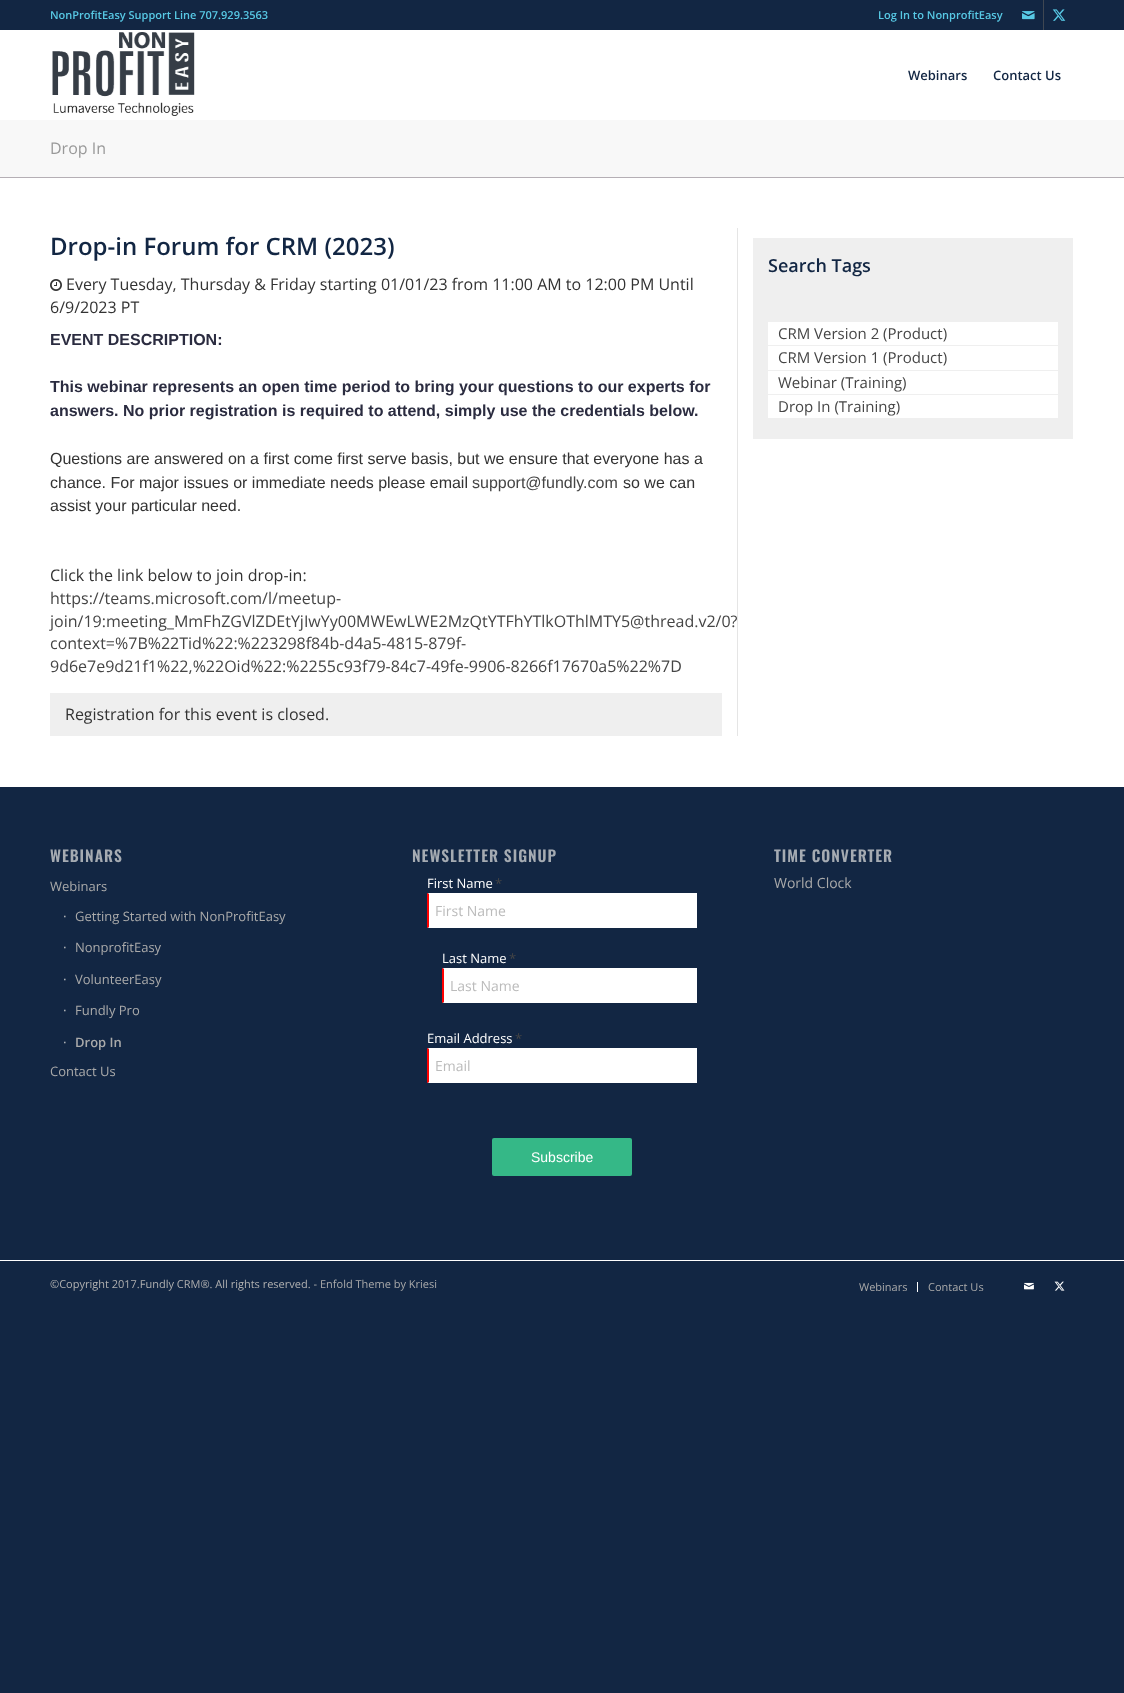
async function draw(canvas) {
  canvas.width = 1124;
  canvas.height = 1693;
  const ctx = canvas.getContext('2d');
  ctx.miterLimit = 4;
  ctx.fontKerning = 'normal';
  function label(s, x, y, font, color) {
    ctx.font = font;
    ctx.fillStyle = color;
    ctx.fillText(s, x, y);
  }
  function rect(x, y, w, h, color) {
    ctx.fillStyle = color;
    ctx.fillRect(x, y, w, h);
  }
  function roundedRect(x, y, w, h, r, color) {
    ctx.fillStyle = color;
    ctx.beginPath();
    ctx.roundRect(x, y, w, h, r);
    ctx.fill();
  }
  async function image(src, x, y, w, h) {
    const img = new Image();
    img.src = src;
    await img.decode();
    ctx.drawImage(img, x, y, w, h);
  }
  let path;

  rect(0, 0, 1124, 1693, '#122643');
  rect(0, 178, 1124, 609, '#fff');
  label('NonProfitEasy Support Line 707.929.3563', 50, 19, '600 11px Open Sans', '#58c9e5');
  label('Log In to NonprofitEasy', 878, 19, '600 11px Open Sans', '#58c9e5');
  rect(1043, 0, 1, 30, '#3f4752');
  await image('assets/img1.png', 1022, 11, 13, 9);
  await image('assets/img2.png', 1052, 9, 14, 12);
  rect(0, 30, 1124, 90, '#fff');
  await image('assets/img3.png', 52, 32, 143, 84);
  label('Webinars', 908, 80, '600 13px Open Sans', '#122643');
  label('Contact Us', 993, 80, '600 13px Open Sans', '#122643');
  rect(0, 120, 1124, 57, '#f8f8f8');
  label('Drop In', 50, 154, '16px Open Sans', '#999');
  rect(0, 177, 1124, 1, '#b5afb5');
  rect(737, 228, 1, 508, '#e5e5e5');
  label('Drop-in Forum for CRM (2023)', 50, 255, '600 24px Open Sans', '#122643');
  await image('assets/img4.png', 50, 279, 12, 12);
  label('Every Tuesday, Thursday & Friday starting 01/01/23 from 11:00 AM to 12:00 PM Until', 66, 290, '16px Open Sans', '#333');
  label('6/9/2023 PT', 50, 313, '16px Open Sans', '#333');
  label('EVENT DESCRIPTION:', 50, 345, 'bold 16px Liberation Sans', '#2b2c40');
  label('This webinar represents an open time period to bring your questions to our experts for', 50, 392, 'bold 16px Liberation Sans', '#2b2c40');
  label('answers. No prior registration is required to attend, simply use the credentials below.', 50, 416, 'bold 16px Liberation Sans', '#2b2c40');
  label('Questions are answered on a first come first serve basis, but we ensure that everyone has a', 50, 464, '16px Liberation Sans', '#333');
  label('chance. For major issues or immediate needs please email', 50, 488, '16px Liberation Sans', '#333');
  label('support@fundly.com', 472, 488, '16px Liberation Sans', '#454545');
  label('so we can', 623, 488, '16px Liberation Sans', '#333');
  label('assist your particular need.', 50, 511, '16px Liberation Sans', '#333');
  label('Click the link below to join drop-in:', 50, 581, '16px Open Sans', '#333');
  label('https://teams.microsoft.com/l/meetup-', 50, 604, '16px Open Sans', '#454545');
  label('join/19:meeting_MmFhZGVlZDEtYjIwYy00MWEwLWE2MzQtYTFhYTlkOThlMTY5@thread.v2/0?', 50, 627, '16px Open Sans', '#454545');
  label('context=%7B%22Tid%22:%223298f84b-d4a5-4815-879f-', 50, 649, '16px Open Sans', '#454545');
  label('9d6e7e9d21f1%22,%22Oid%22:%2255c93f79-84c7-49fe-9906-8266f17670a5%22%7D', 50, 672, '16px Open Sans', '#454545');
  rect(50, 693, 672, 43, '#efefef');
  label('Registration for this event is closed.', 65, 720, '16px Open Sans', '#333');
  rect(753, 238, 320, 201, '#efefef');
  label('Search Tags', 768, 272, '600 18px Open Sans', '#122643');
  rect(768, 322, 290, 23, '#fff');
  label('CRM Version 2 (Product)', 778, 339, '15px Open Sans', '#454545');
  rect(768, 346, 290, 24, '#fff');
  label('CRM Version 1 (Product)', 778, 363, '15px Open Sans', '#454545');
  rect(768, 371, 290, 23, '#fff');
  label('Webinar (Training)', 778, 388, '15px Open Sans', '#454545');
  rect(768, 395, 290, 23, '#fff');
  label('Drop In (Training)', 778, 412, '15px Open Sans', '#454545');
  ctx.letterSpacing = '1px';
  label('WEBINARS', 50, 862, '600 15.5px Oswald', '#a5abb2');
  ctx.letterSpacing = '0px';
  label('Webinars', 50, 891, '13px Open Sans', '#aaa');
  label('∙', 63, 920, '13px Liberation Sans', '#ccc');
  label('Getting Started with NonProfitEasy', 75, 921, '13px Open Sans', '#aaa');
  label('∙', 63, 951, '13px Liberation Sans', '#ccc');
  label('NonprofitEasy', 75, 952, '13px Open Sans', '#aaa');
  label('∙', 63, 983, '13px Liberation Sans', '#ccc');
  label('VolunteerEasy', 75, 984, '13px Open Sans', '#aaa');
  label('∙', 63, 1014, '13px Liberation Sans', '#ccc');
  label('Fundly Pro', 75, 1015, '13px Open Sans', '#aaa');
  label('∙', 63, 1046, '13px Liberation Sans', '#ccc');
  label('Drop In', 75, 1047, '600 13px Open Sans', '#aaa');
  label('Contact Us', 50, 1076, '13px Open Sans', '#aaa');
  ctx.letterSpacing = '1px';
  label('NEWSLETTER SIGNUP', 412, 862, '600 15.5px Oswald', '#a5abb2');
  ctx.letterSpacing = '0px';
  label('First Name', 427, 888, '13px Open Sans', '#fff');
  label('*', 495, 888, '13px Open Sans', '#454545');
  rect(429, 894, 267, 33, '#fff');
  path = new Path2D('M427 893H697L696 894H429Z');
  ctx.fill(path);
  rect(696, 893, 1, 35, '#fff');
  path = new Path2D('M697 928H427L429 927H696Z');
  ctx.fill(path);
  ctx.fillStyle = '#f00';
  path = new Path2D('M427 928V893L429 894V927Z');
  ctx.fill(path);
  label('First Name', 435, 916, '14px Open Sans', '#bbb');
  label('Last Name', 442, 963, '13px Open Sans', '#fff');
  label('*', 509, 963, '13px Open Sans', '#454545');
  rect(444, 969, 252, 33, '#fff');
  path = new Path2D('M442 968H697L696 969H444Z');
  ctx.fill(path);
  rect(696, 968, 1, 35, '#fff');
  path = new Path2D('M697 1003H442L444 1002H696Z');
  ctx.fill(path);
  ctx.fillStyle = '#f00';
  path = new Path2D('M442 1003V968L444 969V1002Z');
  ctx.fill(path);
  label('Last Name', 450, 991, '14px Open Sans', '#bbb');
  label('Email Address', 427, 1043, '13px Open Sans', '#fff');
  label('*', 515, 1043, '13px Open Sans', '#454545');
  rect(429, 1049, 267, 33, '#fff');
  path = new Path2D('M427 1048H697L696 1049H429Z');
  ctx.fill(path);
  rect(696, 1048, 1, 35, '#fff');
  path = new Path2D('M697 1083H427L429 1082H696Z');
  ctx.fill(path);
  ctx.fillStyle = '#f00';
  path = new Path2D('M427 1083V1048L429 1049V1082Z');
  ctx.fill(path);
  label('Email', 435, 1071, '14px Open Sans', '#bbb');
  roundedRect(492, 1138, 140, 38, 2, '#35b887');
  label('Subscribe', 531, 1162, '14px Liberation Sans', '#fff');
  ctx.save();
  ctx.beginPath();
  ctx.rect(774, 832, 300, 61);
  ctx.clip();
  ctx.letterSpacing = '1px';
  label('TIME CONVERTER', 774, 862, '600 15.5px Oswald', '#a5abb2');
  ctx.restore();
  label('World Clock', 774, 888, '14px Open Sans', '#aaa');
  rect(0, 1260, 1124, 1, '#fff');
  label('©Copyright 2017.Fundly CRM®. All rights reserved. -', 50, 1288, '11px Open Sans', '#b0b0b0');
  label('Enfold Theme by Kriesi', 320, 1288, '11px Open Sans', '#aaa');
  label('Webinars', 859, 1291, '11px Open Sans', '#aaa');
  rect(917, 1282, 1, 10, '#fff');
  label('Contact Us', 928, 1291, '11px Open Sans', '#aaa');
  await image('assets/img5.png', 1024, 1282, 10, 8);
  await image('assets/img6.png', 1054, 1281, 11, 10);
}

draw(document.querySelector('canvas'));
